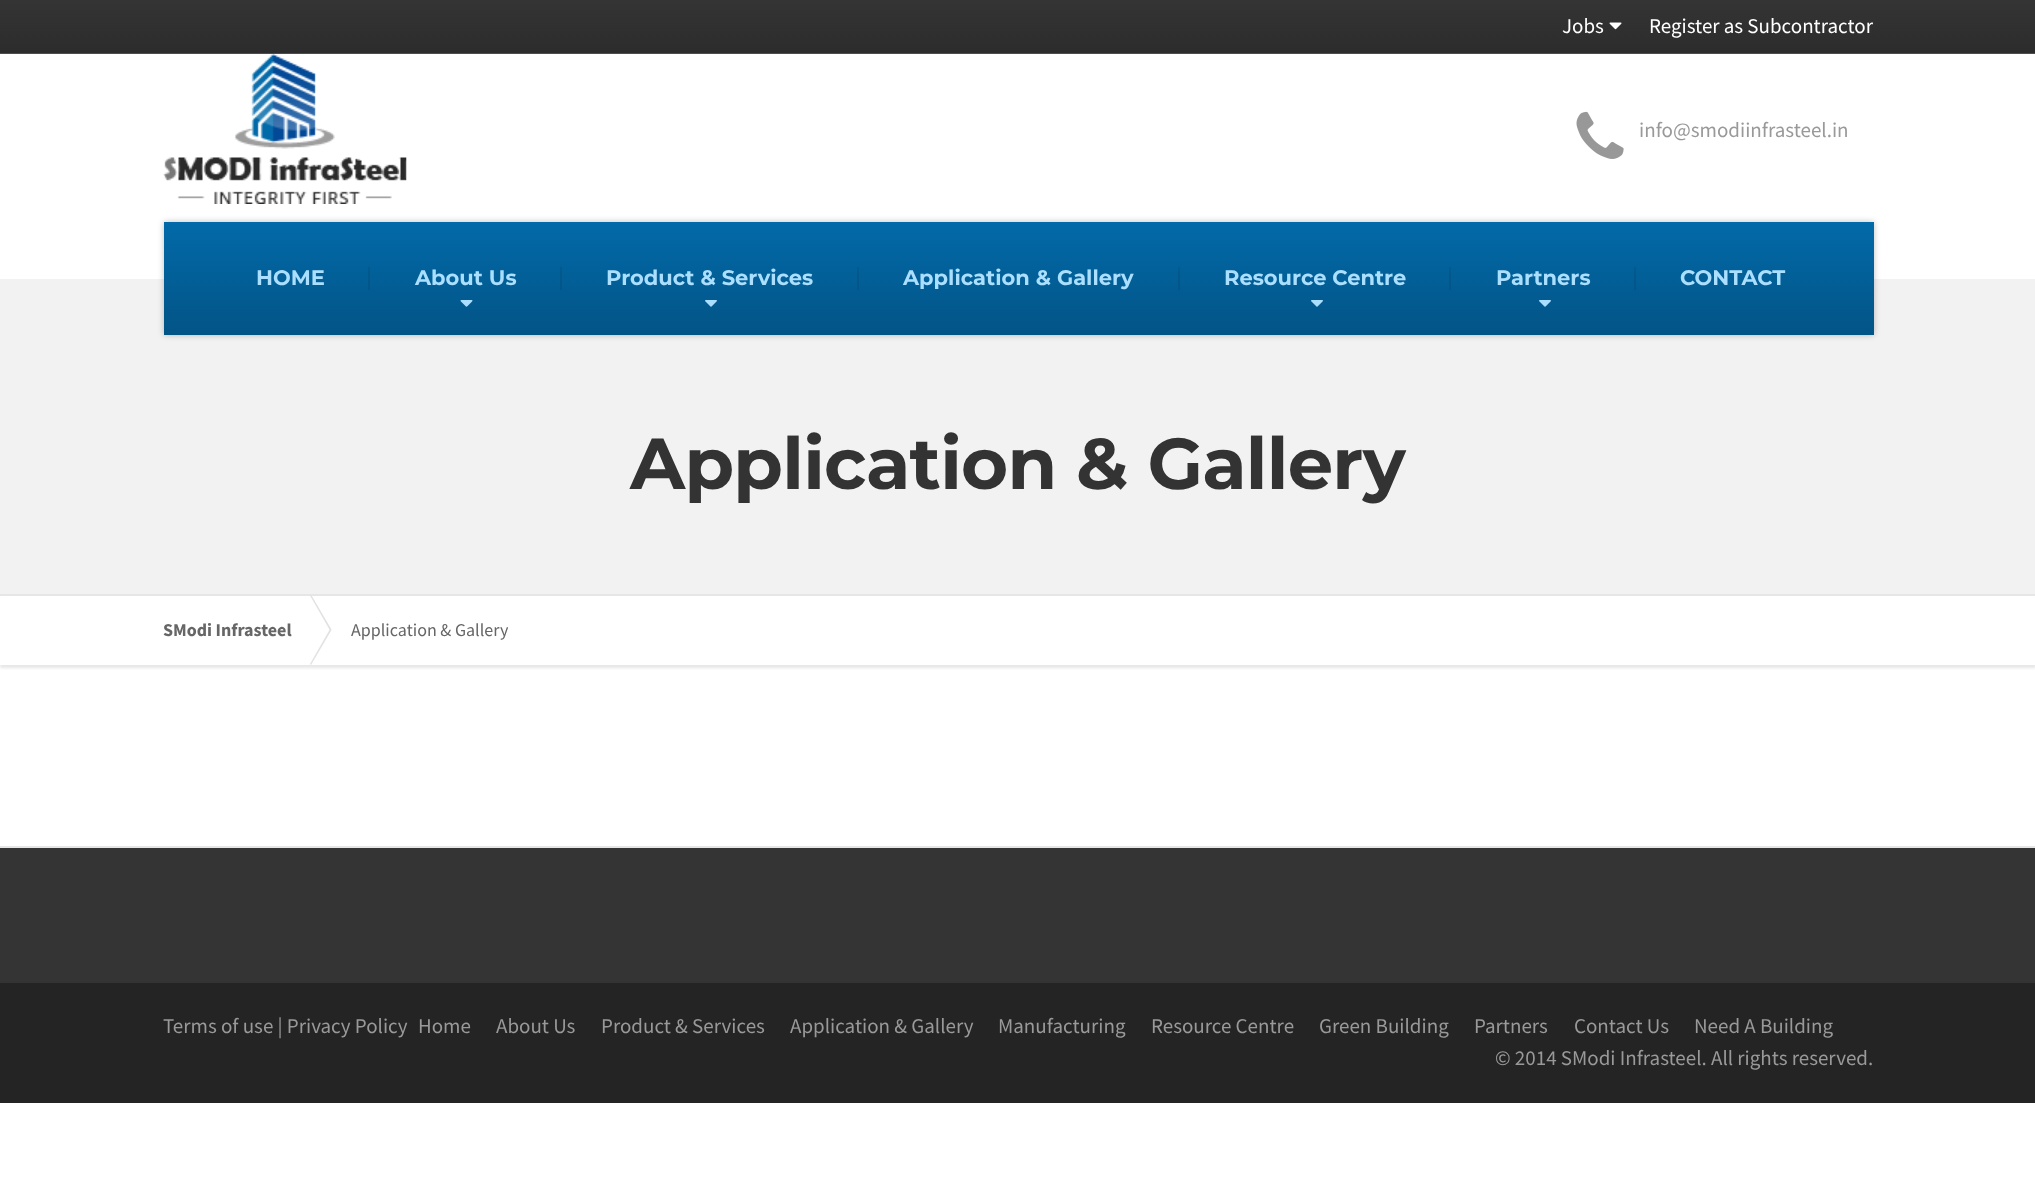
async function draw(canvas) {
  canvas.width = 2035;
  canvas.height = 1204;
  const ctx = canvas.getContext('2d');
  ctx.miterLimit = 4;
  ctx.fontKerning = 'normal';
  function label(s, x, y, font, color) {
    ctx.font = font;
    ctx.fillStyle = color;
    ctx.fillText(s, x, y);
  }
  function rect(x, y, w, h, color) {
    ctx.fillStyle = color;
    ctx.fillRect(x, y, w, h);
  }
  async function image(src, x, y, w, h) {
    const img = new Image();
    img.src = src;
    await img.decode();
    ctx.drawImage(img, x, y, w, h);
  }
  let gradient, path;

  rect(0, 0, 2035, 1204, '#fff');
  gradient = ctx.createLinearGradient(1018, 0, 1018, 53);
  gradient.addColorStop(0, '#343435');
  gradient.addColorStop(1, '#2c2c2d');
  ctx.fillStyle = gradient;
  ctx.fillRect(0, 0, 2035, 53);
  rect(0, 53, 2035, 1, '#4d4d4f');
  label('Jobs', 1562, 33, '21px Source Sans Pro', '#fff');
  await image('assets/img1.png', 1609, 22, 13, 8);
  label('Register as Subcontractor', 1649, 33, '21px Source Sans Pro', '#fff');
  await image('assets/img2.png', 163, 54, 244, 150);
  await image('assets/img3.png', 1576, 111, 48, 48);
  label('info@smodiinfrasteel.in', 1639, 137, '21px Source Sans Pro', '#999');
  rect(0, 279, 2035, 315, '#f2f2f2');
  ctx.fillStyle = '#00000040';
  ctx.filter = 'blur(3px)';
  ctx.beginPath();
  ctx.rect(164, 222, 1710, 113);
  ctx.fill();
  ctx.filter = 'none';
  gradient = ctx.createLinearGradient(1019, 222, 1019, 335);
  gradient.addColorStop(0, '#026aa9');
  gradient.addColorStop(1, '#025486');
  ctx.fillStyle = gradient;
  ctx.fillRect(164, 222, 1710, 113);
  gradient = ctx.createLinearGradient(1019, 222, 1019, 335);
  gradient.addColorStop(0, '#02629b');
  gradient.addColorStop(1, '#024d7b');
  ctx.fillStyle = gradient;
  ctx.fillRect(1634, 267, 2, 23);
  ctx.fillRect(1449, 267, 2, 23);
  ctx.fillRect(1178, 267, 2, 23);
  ctx.fillRect(857, 267, 2, 23);
  ctx.fillRect(560, 267, 2, 23);
  ctx.fillRect(368, 267, 2, 23);
  label('HOME', 256, 285, 'bold 21px Montserrat', '#abdfff');
  label('About Us', 415, 285, 'bold 21px Montserrat', '#abdfff');
  await image('assets/img4.png', 460, 300, 13, 7);
  label('Product & Services', 606, 285, 'bold 21px Montserrat', '#abdfff');
  await image('assets/img5.png', 705, 300, 12, 7);
  label('Application & Gallery', 903, 285, 'bold 21px Montserrat', '#abdfff');
  label('Resource Centre', 1224, 285, 'bold 21px Montserrat', '#abdfff');
  await image('assets/img5.png', 1311, 300, 12, 7);
  label('Partners', 1496, 285, 'bold 21px Montserrat', '#abdfff');
  await image('assets/img5.png', 1539, 300, 12, 7);
  label('CONTACT', 1680, 285, 'bold 21px Montserrat', '#abdfff');
  rect(0, 594, 2035, 2, '#e6e6e6');
  ctx.letterSpacing = '-0.75px';
  label('Application & Gallery', 630, 489, 'bold 72px Montserrat', '#333');
  ctx.fillStyle = '#e6e6e6';
  ctx.filter = 'blur(1.5px)';
  ctx.beginPath();
  ctx.rect(0, 599, 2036, 69);
  ctx.fill();
  ctx.filter = 'none';
  rect(0, 597, 2035, 68, '#fff');
  ctx.letterSpacing = '0px';
  label('SModi Infrasteel', 163, 636, 'bold 18px Source Sans Pro', '#666');
  ctx.fillStyle = '#e2e2e2';
  path = new Path2D('M310 595.5L311 594.5L331.5 629.5L330 630.5Z');
  ctx.fill(path);
  path = new Path2D('M330 629L331.5 630L311 665L310 664Z');
  ctx.fill(path);
  label('Application & Gallery', 351, 636, '18px Source Sans Pro', '#666');
  rect(0, 848, 2035, 135, '#343435');
  rect(0, 846, 2035, 2, '#e6e6e6');
  rect(0, 983, 2035, 120, '#242425');
  label('Terms of use | Privacy Policy', 163, 1033, '21px Source Sans Pro', '#999');
  label('Home', 418, 1033, '21px Source Sans Pro', '#999');
  label('About Us', 496, 1033, '21px Source Sans Pro', '#999');
  label('Product & Services', 601, 1033, '21px Source Sans Pro', '#999');
  label('Application & Gallery', 790, 1033, '21px Source Sans Pro', '#999');
  label('Manufacturing', 998, 1033, '21px Source Sans Pro', '#999');
  label('Resource Centre', 1151, 1033, '21px Source Sans Pro', '#999');
  label('Green Building', 1319, 1033, '21px Source Sans Pro', '#999');
  label('Partners', 1474, 1033, '21px Source Sans Pro', '#999');
  label('Contact Us', 1574, 1033, '21px Source Sans Pro', '#999');
  label('Need A Building', 1694, 1033, '21px Source Sans Pro', '#999');
  label('© 2014 SModi Infrasteel. All rights reserved.', 1495, 1065, '21px Source Sans Pro', '#999');
}

draw(document.querySelector('canvas'));
